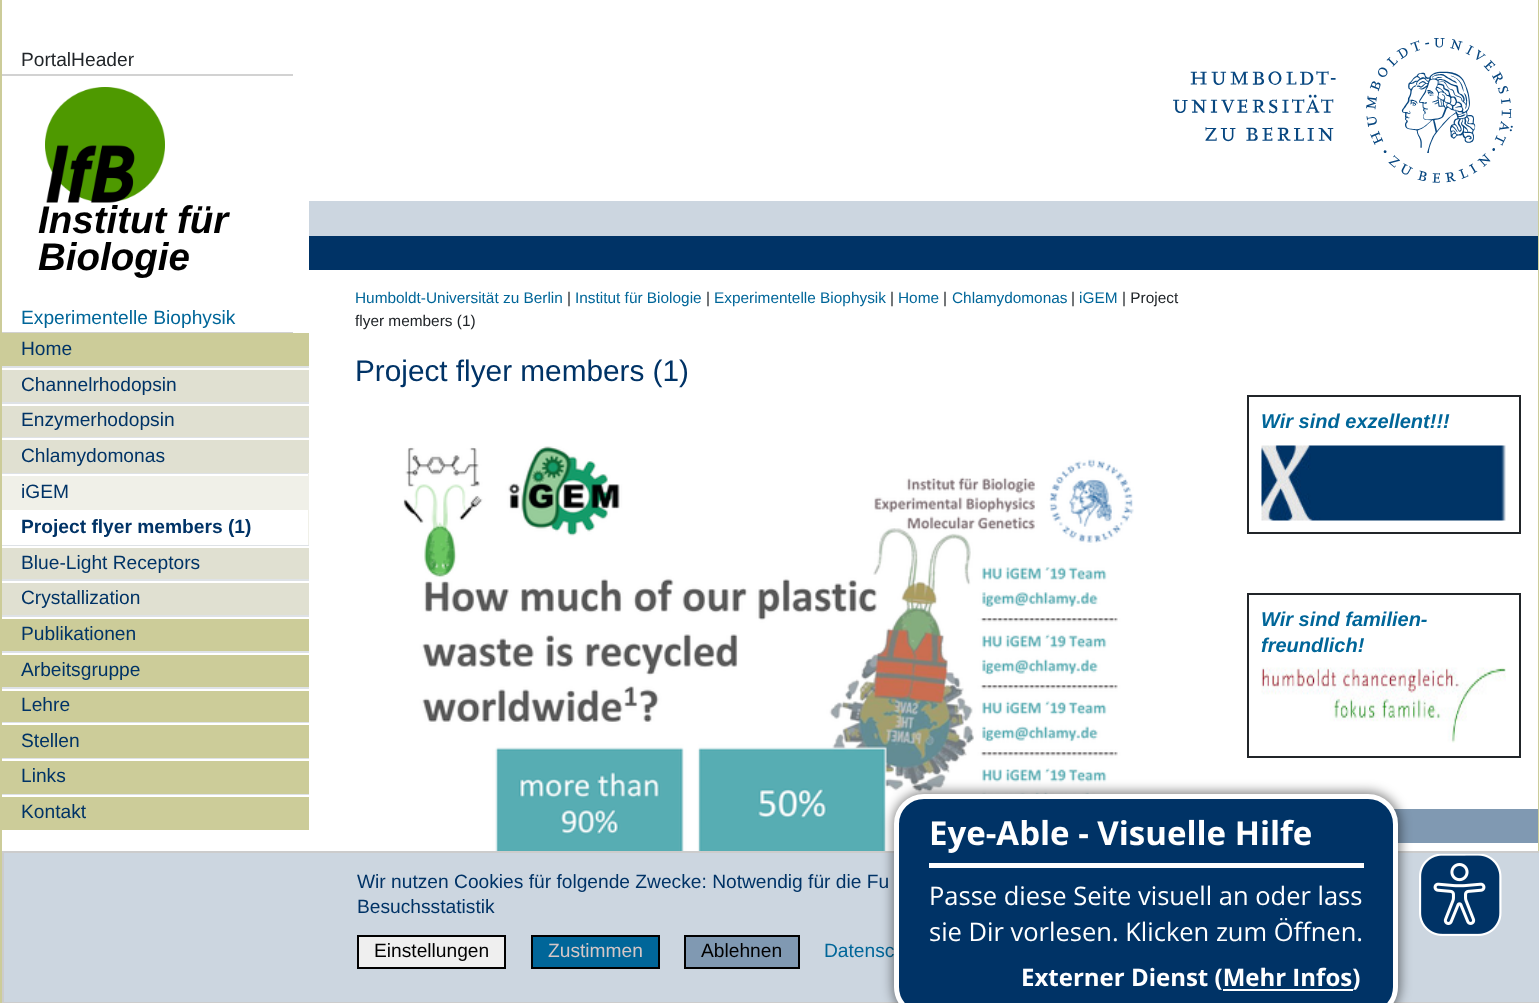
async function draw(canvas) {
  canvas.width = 1539;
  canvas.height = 1003;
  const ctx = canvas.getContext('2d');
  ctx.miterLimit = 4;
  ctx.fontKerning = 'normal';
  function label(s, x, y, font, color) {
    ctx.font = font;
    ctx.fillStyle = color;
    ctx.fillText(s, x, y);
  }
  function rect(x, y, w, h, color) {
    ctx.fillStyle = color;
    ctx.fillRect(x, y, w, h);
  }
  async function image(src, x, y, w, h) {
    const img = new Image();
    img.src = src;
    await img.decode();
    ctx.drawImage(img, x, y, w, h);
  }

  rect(0, 0, 1539, 1003, '#fff');
  await image('assets/img1.png', 1173, 38, 340, 145);
  rect(1538, 0, 1, 851, '#cc9');
  rect(0, 0, 2, 1003, '#cc9');
  rect(2, 74, 291, 2, '#d2d2d2');
  label('PortalHeader', 21, 66, '19.2px Liberation Sans', '#212529');
  await image('assets/img2.png', 45, 87, 120, 116);
  label('Institut für', 38, 233, 'italic bold 38.5px Liberation Sans', '#000');
  label('Biologie', 38, 270, 'italic bold 38.5px Liberation Sans', '#000');
  rect(2, 332, 291, 1, '#d2d2d2');
  label('Experimentelle Biophysik', 21, 324, '19.2px Liberation Sans', '#069');
  rect(2, 333, 307, 33, '#cc9');
  label('Home', 21, 355, '19.2px Liberation Sans', '#036');
  rect(2, 370, 307, 32, '#e0e0d1');
  rect(2, 366, 307, 2, '#dee2e6');
  label('Channelrhodopsin', 21, 391, '19.2px Liberation Sans', '#036');
  rect(2, 406, 307, 31, '#e0e0d1');
  rect(2, 402, 307, 2, '#dee2e6');
  label('Enzymerhodopsin', 21, 426, '19.2px Liberation Sans', '#036');
  rect(2, 440, 307, 33, '#e0e0d1');
  rect(2, 437, 307, 1, '#dee2e6');
  label('Chlamydomonas', 21, 462, '19.2px Liberation Sans', '#036');
  rect(2, 476, 306, 34, '#f0f0e8');
  rect(2, 473, 307, 1, '#dee2e6');
  rect(308, 473, 1, 72, '#f0f0e8');
  label('iGEM', 21, 498, '19.2px Liberation Sans', '#036');
  label('Project flyer members (1)', 21, 533, 'bold 19.2px Liberation Sans', '#036');
  rect(2, 548, 307, 31, '#e0e0d1');
  rect(2, 545, 307, 1, '#dee2e6');
  label('Blue-Light Receptors', 21, 569, '19.2px Liberation Sans', '#036');
  rect(2, 583, 307, 32, '#e0e0d1');
  rect(2, 579, 307, 2, '#dee2e6');
  label('Crystallization', 21, 604, '19.2px Liberation Sans', '#036');
  rect(2, 619, 307, 32, '#cc9');
  rect(2, 615, 307, 2, '#dee2e6');
  label('Publikationen', 21, 640, '19.2px Liberation Sans', '#036');
  rect(2, 655, 307, 32, '#cc9');
  rect(2, 651, 307, 2, '#dee2e6');
  label('Arbeitsgruppe', 21, 676, '19.2px Liberation Sans', '#036');
  rect(2, 691, 307, 31, '#cc9');
  rect(2, 687, 307, 2, '#dee2e6');
  label('Lehre', 21, 711, '19.2px Liberation Sans', '#036');
  rect(2, 725, 307, 33, '#cc9');
  rect(2, 722, 307, 1, '#dee2e6');
  label('Stellen', 21, 747, '19.2px Liberation Sans', '#036');
  rect(2, 761, 307, 33, '#cc9');
  rect(2, 758, 307, 1, '#dee2e6');
  label('Links', 21, 782, '19.2px Liberation Sans', '#036');
  rect(2, 797, 307, 33, '#cc9');
  rect(2, 794, 307, 1, '#dee2e6');
  label('Kontakt', 21, 818, '19.2px Liberation Sans', '#036');
  rect(309, 201, 1229, 35, '#ccd6e0');
  rect(309, 236, 1229, 34, '#036');
  label('Humboldt-Universität zu Berlin', 355, 303, '15.4px Liberation Sans', '#069');
  label('|', 567, 303, '15.4px Liberation Sans', '#212529');
  label('Institut für Biologie', 575, 303, '15.4px Liberation Sans', '#069');
  label('|', 706, 303, '15.4px Liberation Sans', '#212529');
  label('Experimentelle Biophysik', 714, 303, '15.4px Liberation Sans', '#069');
  label('|', 890, 303, '15.4px Liberation Sans', '#212529');
  label('Home', 898, 303, '15.4px Liberation Sans', '#069');
  label('|', 943, 303, '15.4px Liberation Sans', '#212529');
  label('Chlamydomonas', 952, 303, '15.4px Liberation Sans', '#069');
  label('|', 1071, 303, '15.4px Liberation Sans', '#212529');
  label('iGEM', 1079, 303, '15.4px Liberation Sans', '#069');
  label('| Project', 1122, 303, '15.4px Liberation Sans', '#212529');
  label('flyer members (1)', 355, 326, '15.4px Liberation Sans', '#212529');
  label('Project flyer members (1)', 355, 381, '29.75px Liberation Sans', '#036');
  await image('assets/img3.png', 403, 446, 731, 405);
  ctx.strokeStyle = '#212529';
  ctx.lineWidth = 2;
  ctx.strokeRect(1248, 396, 272, 137);
  label('Wir sind exzellent!!!', 1261, 428, 'italic bold 20px Liberation Sans', '#069');
  await image('assets/img4.png', 1261, 445, 245, 76);
  ctx.strokeRect(1248, 594, 272, 163);
  label('Wir sind familien-', 1261, 626, 'italic bold 20px Liberation Sans', '#069');
  label('freundlich!', 1261, 652, 'italic bold 20px Liberation Sans', '#069');
  await image('assets/img5.png', 1261, 667, 245, 76);
  rect(1394, 809, 144, 34, '#8099b2');
  ctx.fillStyle = '#ccd6e0';
  ctx.beginPath();
  ctx.rect(3, 852, 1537, 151);
  ctx.fill();
  ctx.strokeStyle = '#ccc';
  ctx.stroke();
  label('Wir nutzen Cookies für folgende Zwecke: Notwendig für die Fu', 357, 888, '19.2px Liberation Sans', '#036');
  label('Besuchsstatistik', 357, 913, '19.2px Liberation Sans', '#036');
  ctx.fillStyle = '#efefef';
  ctx.beginPath();
  ctx.rect(358, 936, 147, 32);
  ctx.fill();
  ctx.strokeStyle = '#000';
  ctx.stroke();
  label('Einstellungen', 374, 957, '19.2px Liberation Sans', '#000');
  ctx.fillStyle = '#069';
  ctx.beginPath();
  ctx.rect(532, 936, 127, 32);
  ctx.fill();
  ctx.stroke();
  label('Zustimmen', 548, 957, '19.2px Liberation Sans', '#d5c7c7');
  ctx.fillStyle = '#8099b2';
  ctx.beginPath();
  ctx.rect(685, 936, 114, 32);
  ctx.fill();
  ctx.stroke();
  label('Ablehnen', 701, 957, '19.2px Liberation Sans', '#000');
  label('Datensc', 824, 957, '19.2px Liberation Sans', '#069');
  ctx.fillStyle = '#00000080';
  ctx.filter = 'blur(6px)';
  ctx.beginPath();
  ctx.roundRect(893, 792, 507, 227, 32);
  ctx.fill();
  ctx.filter = 'none';
  ctx.fillStyle = '#036';
  ctx.beginPath();
  ctx.roundRect(896.5, 796.5, 499, 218, 27.5);
  ctx.fill();
  ctx.strokeStyle = '#fff';
  ctx.lineWidth = 5;
  ctx.stroke();
  rect(929, 863, 435, 5, '#fff');
  label('Eye-Able - Visuelle Hilfe', 929, 845, 'bold 33px Open Sans', '#fff');
  label('Passe diese Seite visuell an oder lass', 929, 905, '25.5px Open Sans', '#fff');
  label('sie Dir vorlesen. Klicken zum Öffnen.', 929, 941, '25.5px Open Sans', '#fff');
  label('Externer Dienst (Mehr Infos)', 1021, 986, 'bold 24px Open Sans', '#fff');
  rect(1223, 989, 130, 2, '#fff');
  await image('assets/img6.png', 1419, 854, 83, 82);
}

draw(document.querySelector('canvas'));
